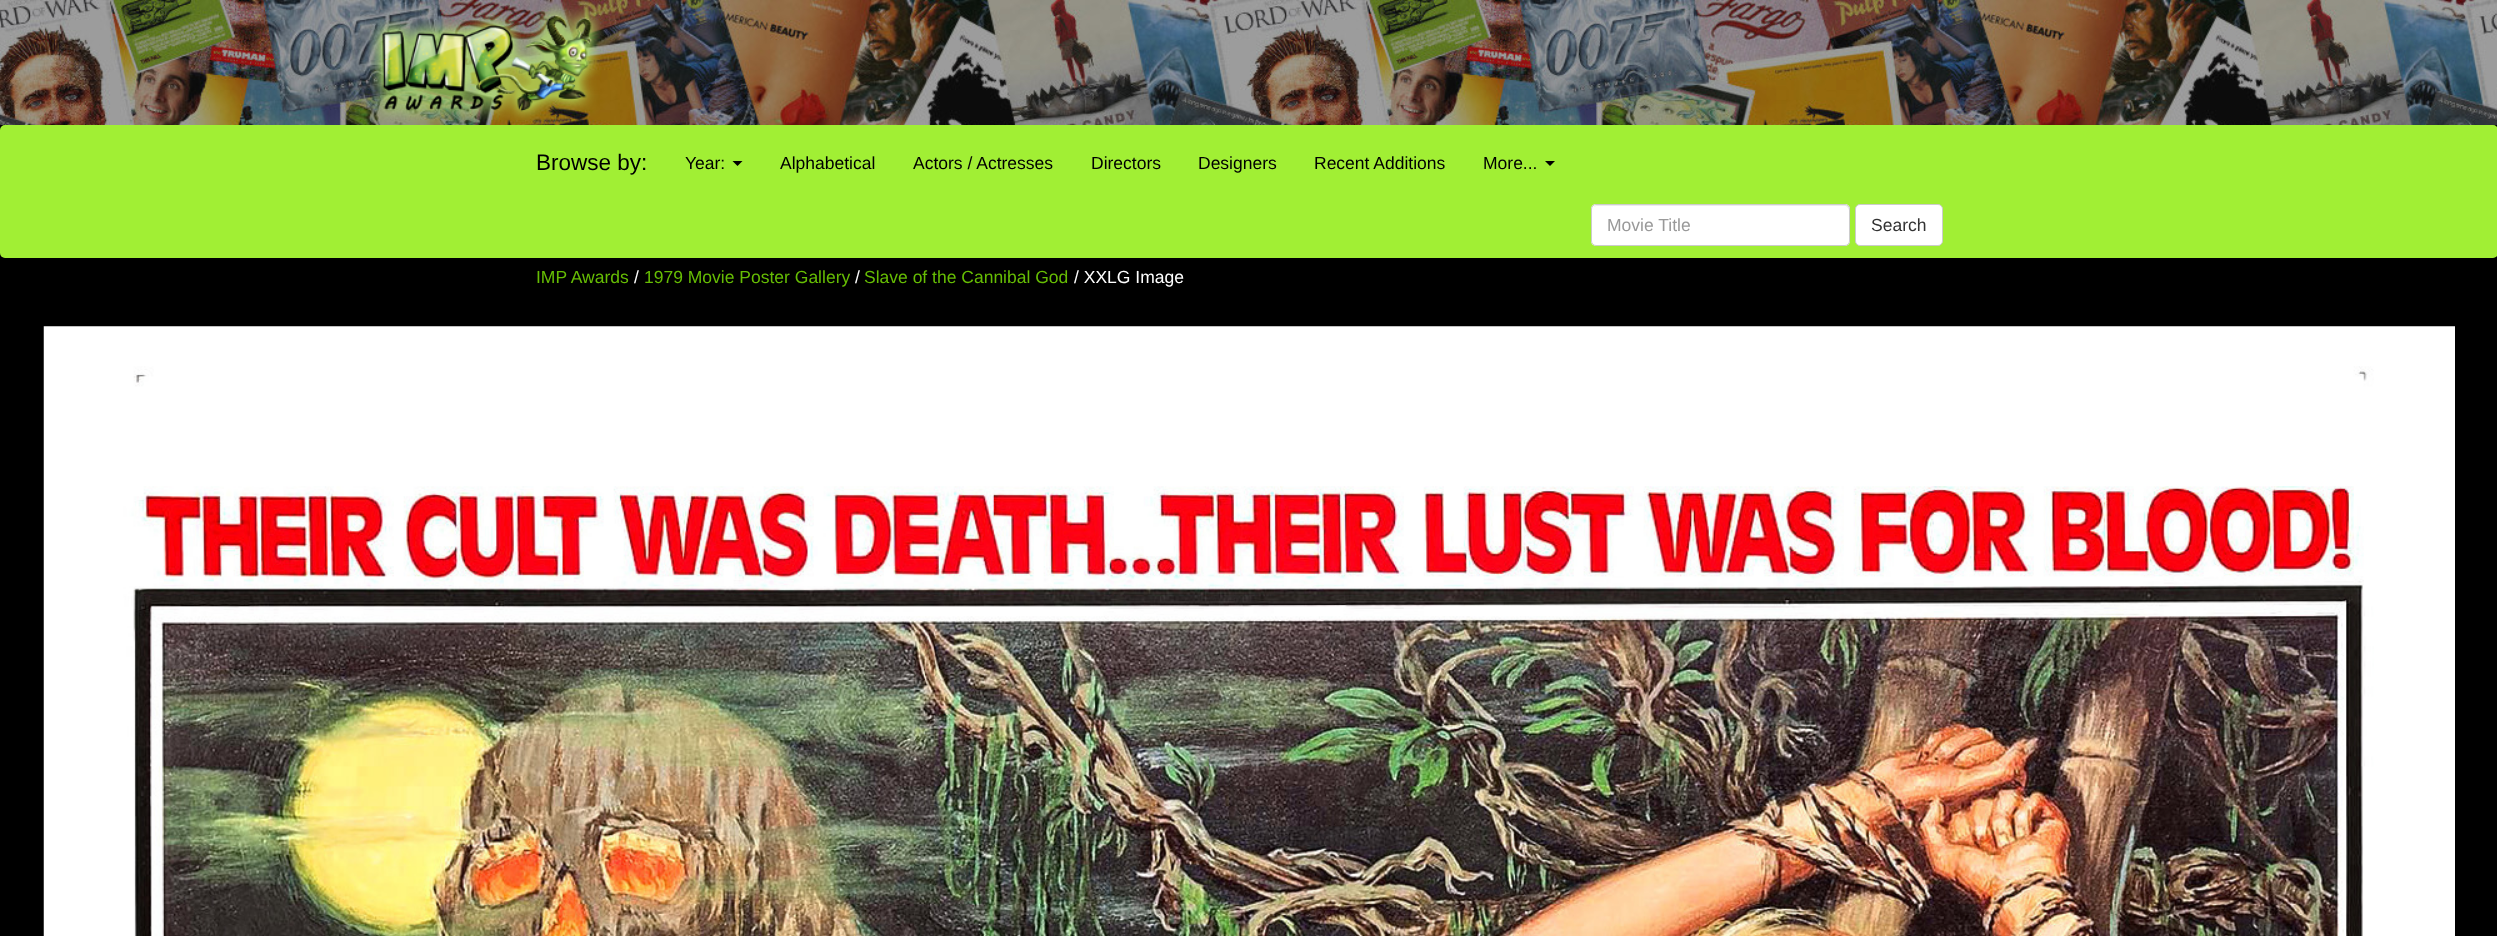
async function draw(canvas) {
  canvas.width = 2497;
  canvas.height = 936;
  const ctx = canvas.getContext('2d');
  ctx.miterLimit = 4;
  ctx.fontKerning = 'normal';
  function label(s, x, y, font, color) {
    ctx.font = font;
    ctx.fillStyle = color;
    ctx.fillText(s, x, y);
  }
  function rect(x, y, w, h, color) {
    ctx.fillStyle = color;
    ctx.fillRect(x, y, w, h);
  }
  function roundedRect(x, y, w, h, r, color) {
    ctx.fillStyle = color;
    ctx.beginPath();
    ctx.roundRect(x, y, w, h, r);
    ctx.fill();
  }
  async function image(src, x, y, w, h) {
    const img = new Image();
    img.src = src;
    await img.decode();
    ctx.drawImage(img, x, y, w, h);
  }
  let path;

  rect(0, 0, 2497, 936, '#000');
  await image('assets/img1.png', 0, 0, 2497, 125);
  await image('assets/img2.png', 369, 4, 235, 118);
  roundedRect(0, 125, 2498, 133, 5, '#a1ef34');
  label('Browse by:', 536, 170, '22.5px Liberation Sans', '#000');
  label('Year:', 685, 169, '17.5px Liberation Sans', '#000');
  path = new Path2D('M732.5 161H742.5L737.5 166Z');
  ctx.fill(path);
  label('Alphabetical', 780, 169, '17.5px Liberation Sans', '#000');
  label('Actors / Actresses', 913, 169, '17.5px Liberation Sans', '#000');
  label('Directors', 1091, 169, '17.5px Liberation Sans', '#000');
  label('Designers', 1198, 169, '17.5px Liberation Sans', '#000');
  label('Recent Additions', 1314, 169, '17.5px Liberation Sans', '#000');
  label('More...', 1483, 169, '17.5px Liberation Sans', '#000');
  path = new Path2D('M1545 161H1555L1550 166Z');
  ctx.fill(path);
  roundedRect(1591, 204, 259, 42, 5, '#fff');
  ctx.fillStyle = '#ececec';
  path = new Path2D('M1596 206H1846L1848 208L1849 210V209C1849 207 1847 205 1845 205H1597C1596 205 1594 206 1594 207Z');
  ctx.fill(path);
  ctx.beginPath();
  ctx.roundRect(1591.5, 204.5, 258, 41, 4.5);
  ctx.strokeStyle = '#ccc';
  ctx.stroke();
  label('Movie Title', 1607, 231, '17.5px Liberation Sans', '#999');
  ctx.fillStyle = '#fff';
  ctx.beginPath();
  ctx.roundRect(1855.5, 204.5, 87, 41, 4.5);
  ctx.fill();
  ctx.stroke();
  label('Search', 1871, 231, '17.5px Liberation Sans', '#333');
  label('IMP Awards', 536, 283, '17.5px Liberation Sans', '#66bd04');
  label('/', 634, 283, '17.5px Liberation Sans', '#fff');
  label('1979 Movie Poster Gallery', 644, 283, '17.5px Liberation Sans', '#66bd04');
  label('/', 855, 283, '17.5px Liberation Sans', '#fff');
  label('Slave of the Cannibal God', 864, 283, '17.5px Liberation Sans', '#66bd04');
  label('/ XXLG Image', 1074, 283, '17.5px Liberation Sans', '#fff');
  await image('assets/img3.png', 43, 326, 2412, 610);
}

draw(document.querySelector('canvas'));
